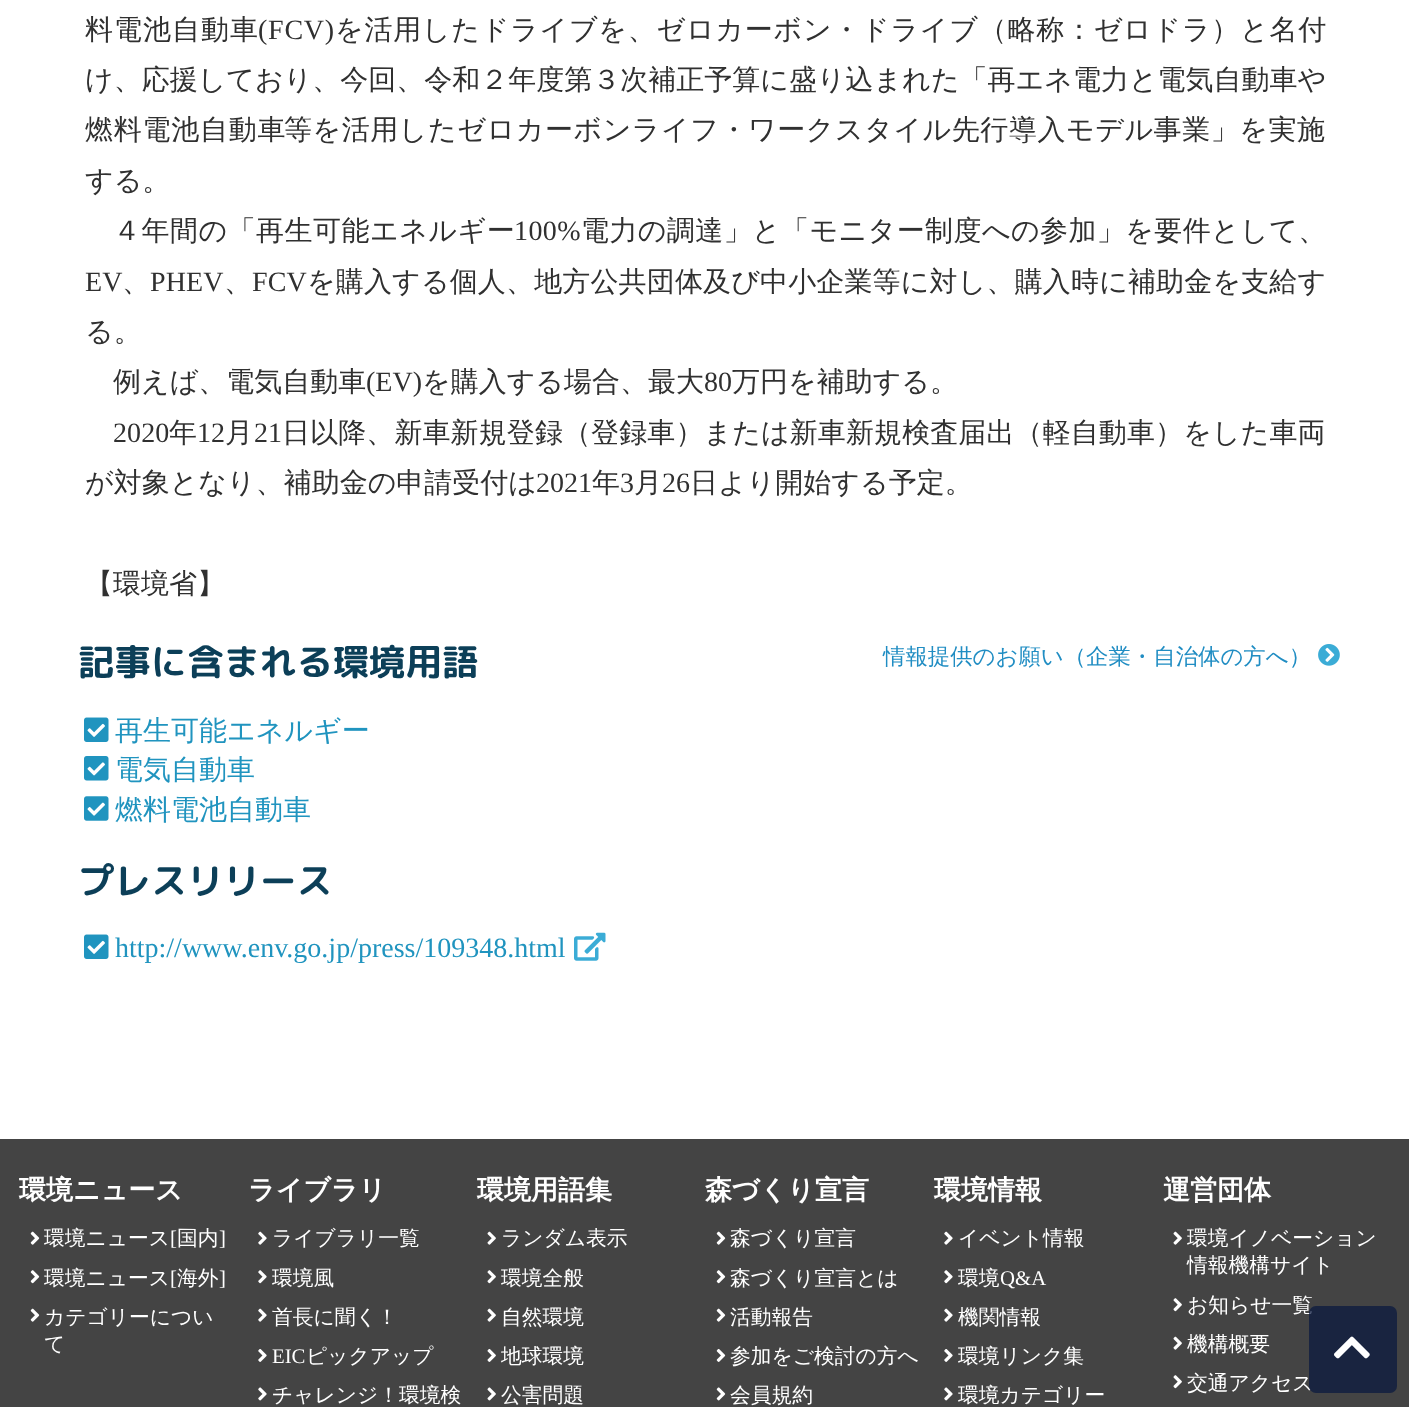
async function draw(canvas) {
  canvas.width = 1409;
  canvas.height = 1407;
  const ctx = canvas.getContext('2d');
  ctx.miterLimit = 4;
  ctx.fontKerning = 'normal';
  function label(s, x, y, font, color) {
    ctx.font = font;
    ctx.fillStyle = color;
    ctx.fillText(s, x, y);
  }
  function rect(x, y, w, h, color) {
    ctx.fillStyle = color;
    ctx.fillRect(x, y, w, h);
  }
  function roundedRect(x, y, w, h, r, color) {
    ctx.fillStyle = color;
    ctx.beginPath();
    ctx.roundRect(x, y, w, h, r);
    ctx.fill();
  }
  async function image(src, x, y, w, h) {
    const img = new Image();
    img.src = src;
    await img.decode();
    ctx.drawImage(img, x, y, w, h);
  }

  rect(0, 0, 1409, 1407, '#fff');
  ctx.letterSpacing = '1px';
  label('料電池自動車', 85, 39, '500 28px WenQuanYi Zen Hei', '#303030');
  ctx.letterSpacing = '0.75px';
  label('(FCV)', 258, 39, '28px Liberation Serif', '#303030');
  label('を活用したドライブを、ゼロカーボン・ドライブ（略称：ゼロドラ）と名付', 335, 39, '500 28px WenQuanYi Zen Hei', '#303030');
  ctx.letterSpacing = '0px';
  label('け、応援しており、今回、令和２年度第３次補正予算に盛り込まれた「再エネ電力と電気自動車や', 85, 89, '500 28px WenQuanYi Zen Hei', '#303030');
  ctx.letterSpacing = '0.75px';
  label('燃料電池自動車', 85, 139, '500 28px WenQuanYi Zen Hei', '#303030');
  ctx.letterSpacing = '0.55px';
  label('等を活用したゼロカーボンライフ・ワークスタイル先行導入モデル事業」を実施', 284, 139, '500 28px WenQuanYi Zen Hei', '#303030');
  ctx.letterSpacing = '0px';
  label('する。', 85, 190, '500 28px WenQuanYi Zen Hei', '#303030');
  ctx.letterSpacing = '0.5px';
  label('４年間の「', 113, 240, '500 28px WenQuanYi Zen Hei', '#303030');
  label('再生可能エネルギー', 256, 240, '500 28px WenQuanYi Zen Hei', '#303030');
  ctx.letterSpacing = '0.4px';
  label('100%', 514, 240, '28px Liberation Serif', '#303030');
  label('電力の調達」と「モニター制度への参加」を要件として、', 581, 240, '500 28px WenQuanYi Zen Hei', '#303030');
  ctx.letterSpacing = '0.15px';
  label('EV', 85, 291, '28px Liberation Serif', '#303030');
  label('、', 122, 291, '500 28px WenQuanYi Zen Hei', '#303030');
  label('PHEV', 150, 291, '28px Liberation Serif', '#303030');
  label('、', 224, 291, '500 28px WenQuanYi Zen Hei', '#303030');
  label('FCV', 252, 291, '28px Liberation Serif', '#303030');
  label('を購入する個人、地方公共団体及び中小企業等に対し、購入時に補助金を支給す', 307, 291, '500 28px WenQuanYi Zen Hei', '#303030');
  ctx.letterSpacing = '0px';
  label('る。', 85, 341, '500 28px WenQuanYi Zen Hei', '#303030');
  label('例えば、電気自動車', 113, 391, '500 28px WenQuanYi Zen Hei', '#303030');
  label('(EV)', 366, 391, '28px Liberation Serif', '#303030');
  label('を購入する場合、最大', 422, 391, '500 28px WenQuanYi Zen Hei', '#303030');
  label('80', 704, 391, '28px Liberation Serif', '#303030');
  label('万円を補助する。', 732, 391, '500 28px WenQuanYi Zen Hei', '#303030');
  ctx.letterSpacing = '0.1px';
  label('2020', 113, 442, '28px Liberation Serif', '#303030');
  label('年', 169, 442, '500 28px WenQuanYi Zen Hei', '#303030');
  label('12', 197, 442, '28px Liberation Serif', '#303030');
  label('月', 225, 442, '500 28px WenQuanYi Zen Hei', '#303030');
  label('21', 254, 442, '28px Liberation Serif', '#303030');
  label('日以降、新車新規登録（登録車）または新車新規検査届出（軽自動車）をした車両', 282, 442, '500 28px WenQuanYi Zen Hei', '#303030');
  ctx.letterSpacing = '0px';
  label('が対象となり、補助金の申請受付は', 85, 492, '500 28px WenQuanYi Zen Hei', '#303030');
  label('2021', 536, 492, '28px Liberation Serif', '#303030');
  label('年', 592, 492, '500 28px WenQuanYi Zen Hei', '#303030');
  label('3', 620, 492, '28px Liberation Serif', '#303030');
  label('月', 634, 492, '500 28px WenQuanYi Zen Hei', '#303030');
  label('26', 662, 492, '28px Liberation Serif', '#303030');
  label('日より開始する予定。', 690, 492, '500 28px WenQuanYi Zen Hei', '#303030');
  label('【環境省】', 85, 593, '500 28px WenQuanYi Zen Hei', '#303030');
  label('記事に含まれる環境用語', 78, 675, 'bold 36.4px "Rounded Mplus 1c Bold"', '#0c3f58');
  label('情報提供のお願い（企業・自治体の方へ）', 883, 664, '500 22.4px WenQuanYi Zen Hei', '#208dc3');
  await image('assets/img1.png', 1318, 644, 22, 22);
  await image('assets/img2.png', 84, 717, 25, 25);
  label('再生可能エネルギー', 115, 740, '500 28px WenQuanYi Zen Hei', '#2094bf');
  await image('assets/img3.png', 84, 756, 25, 25);
  label('電気自動車', 115, 779, '500 28px WenQuanYi Zen Hei', '#2094bf');
  await image('assets/img4.png', 84, 796, 25, 25);
  label('燃料電池自動車', 115, 819, '500 28px WenQuanYi Zen Hei', '#2094bf');
  label('プレスリリース', 78, 894, 'bold 36.4px "Rounded Mplus 1c Bold"', '#0c3f58');
  await image('assets/img2.png', 84, 934, 25, 25);
  label('http://www.env.go.jp/press/109348.html', 115, 957, '28px Liberation Serif', '#2094bf');
  await image('assets/img5.png', 574, 932, 32, 29);
  rect(0, 1139, 1409, 268, '#444');
  label('環境ニュース', 19, 1199, 'bold 27px WenQuanYi Zen Hei', '#fff');
  await image('assets/img6.png', 30, 1231, 10, 14);
  label('環境ニュース', 44, 1245, '500 20.75px WenQuanYi Zen Hei', '#fff');
  label('[', 170, 1245, '20.75px Liberation Serif', '#fff');
  label('国内', 177, 1245, '500 20.75px WenQuanYi Zen Hei', '#fff');
  label(']', 219, 1245, '20.75px Liberation Serif', '#fff');
  await image('assets/img7.png', 30, 1270, 10, 14);
  label('環境ニュース', 44, 1285, '500 20.75px WenQuanYi Zen Hei', '#fff');
  label('[', 170, 1285, '20.75px Liberation Serif', '#fff');
  label('海外', 177, 1285, '500 20.75px WenQuanYi Zen Hei', '#fff');
  label(']', 219, 1285, '20.75px Liberation Serif', '#fff');
  await image('assets/img6.png', 30, 1308, 10, 14);
  label('カテゴリーについ', 44, 1324, '500 20.75px WenQuanYi Zen Hei', '#fff');
  label('て', 44, 1351, '500 20.75px WenQuanYi Zen Hei', '#fff');
  label('ライブラリ', 248, 1199, 'bold 27px WenQuanYi Zen Hei', '#fff');
  await image('assets/img8.png', 258, 1231, 9, 14);
  label('ライブラリ一覧', 272, 1245, '500 20.75px WenQuanYi Zen Hei', '#fff');
  await image('assets/img9.png', 258, 1270, 9, 14);
  label('環境風', 272, 1285, '500 20.75px WenQuanYi Zen Hei', '#fff');
  await image('assets/img8.png', 258, 1308, 9, 14);
  label('首長に聞く！', 272, 1324, '500 20.75px WenQuanYi Zen Hei', '#fff');
  await image('assets/img10.png', 258, 1349, 9, 13);
  label('EIC', 272, 1363, '20.75px Liberation Serif', '#fff');
  label('ピックアップ', 306, 1363, '500 20.75px WenQuanYi Zen Hei', '#fff');
  await image('assets/img11.png', 258, 1387, 9, 14);
  label('チャレンジ！環境検', 272, 1402, '500 20.75px WenQuanYi Zen Hei', '#fff');
  label('環境用語集', 477, 1199, 'bold 27px WenQuanYi Zen Hei', '#fff');
  await image('assets/img12.png', 487, 1231, 9, 14);
  label('ランダム表示', 501, 1245, '500 20.75px WenQuanYi Zen Hei', '#fff');
  await image('assets/img13.png', 487, 1270, 9, 14);
  label('環境全般', 501, 1285, '500 20.75px WenQuanYi Zen Hei', '#fff');
  await image('assets/img12.png', 487, 1308, 9, 14);
  label('自然環境', 501, 1324, '500 20.75px WenQuanYi Zen Hei', '#fff');
  await image('assets/img14.png', 487, 1348, 9, 14);
  label('地球環境', 501, 1363, '500 20.75px WenQuanYi Zen Hei', '#fff');
  await image('assets/img15.png', 487, 1387, 9, 14);
  label('公害問題', 501, 1402, '500 20.75px WenQuanYi Zen Hei', '#fff');
  label('森づくり宣言', 705, 1199, 'bold 27px WenQuanYi Zen Hei', '#fff');
  await image('assets/img6.png', 716, 1231, 10, 14);
  label('森づくり宣言', 730, 1245, '500 20.75px WenQuanYi Zen Hei', '#fff');
  await image('assets/img7.png', 716, 1270, 10, 14);
  label('森づくり宣言とは', 730, 1285, '500 20.75px WenQuanYi Zen Hei', '#fff');
  await image('assets/img6.png', 716, 1308, 10, 14);
  label('活動報告', 730, 1324, '500 20.75px WenQuanYi Zen Hei', '#fff');
  await image('assets/img16.png', 716, 1348, 10, 14);
  label('参加をご検討の方へ', 730, 1363, '500 20.75px WenQuanYi Zen Hei', '#fff');
  await image('assets/img17.png', 716, 1387, 10, 14);
  label('会員規約', 730, 1402, '500 20.75px WenQuanYi Zen Hei', '#fff');
  label('環境情報', 934, 1199, 'bold 27px WenQuanYi Zen Hei', '#fff');
  await image('assets/img8.png', 944, 1231, 9, 14);
  label('イベント情報', 958, 1245, '500 20.75px WenQuanYi Zen Hei', '#fff');
  await image('assets/img9.png', 944, 1270, 9, 14);
  label('環境', 958, 1285, '500 20.75px WenQuanYi Zen Hei', '#fff');
  label('Q&A', 1000, 1285, '20.75px Liberation Serif', '#fff');
  await image('assets/img8.png', 944, 1308, 9, 14);
  label('機関情報', 958, 1324, '500 20.75px WenQuanYi Zen Hei', '#fff');
  await image('assets/img10.png', 944, 1349, 9, 13);
  label('環境リンク集', 958, 1363, '500 20.75px WenQuanYi Zen Hei', '#fff');
  await image('assets/img11.png', 944, 1387, 9, 14);
  label('環境カテゴリー', 958, 1402, '500 20.75px WenQuanYi Zen Hei', '#fff');
  label('運営団体', 1163, 1199, 'bold 27px WenQuanYi Zen Hei', '#fff');
  await image('assets/img12.png', 1173, 1231, 9, 14);
  label('環境イノベーション', 1187, 1245, '500 20.75px WenQuanYi Zen Hei', '#fff');
  label('情報機構サイト', 1187, 1272, '500 20.75px WenQuanYi Zen Hei', '#fff');
  await image('assets/img13.png', 1173, 1298, 9, 14);
  label('お知らせ一覧', 1187, 1312, '500 20.75px WenQuanYi Zen Hei', '#fff');
  await image('assets/img12.png', 1173, 1336, 9, 14);
  label('機構概要', 1187, 1351, '500 20.75px WenQuanYi Zen Hei', '#fff');
  await image('assets/img13.png', 1173, 1375, 9, 14);
  label('交通アクセス', 1187, 1390, '500 20.75px WenQuanYi Zen Hei', '#fff');
  roundedRect(1309, 1306, 88, 87, 7, '#07173eb3');
  await image('assets/img18.png', 1334, 1336, 36, 23);
}

draw(document.querySelector('canvas'));
